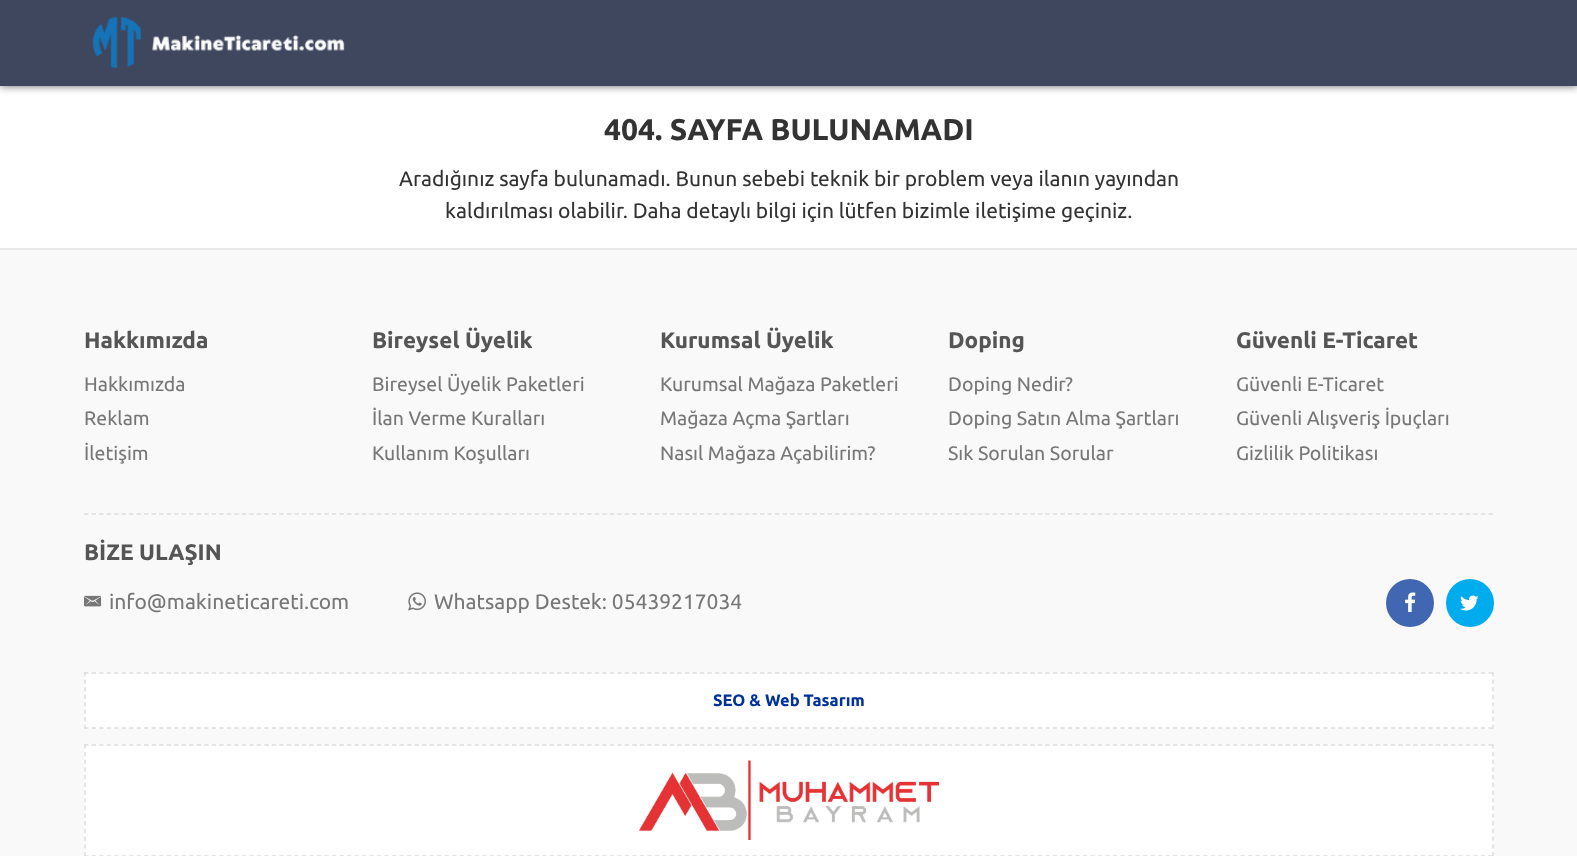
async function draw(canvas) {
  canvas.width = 1577;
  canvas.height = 856;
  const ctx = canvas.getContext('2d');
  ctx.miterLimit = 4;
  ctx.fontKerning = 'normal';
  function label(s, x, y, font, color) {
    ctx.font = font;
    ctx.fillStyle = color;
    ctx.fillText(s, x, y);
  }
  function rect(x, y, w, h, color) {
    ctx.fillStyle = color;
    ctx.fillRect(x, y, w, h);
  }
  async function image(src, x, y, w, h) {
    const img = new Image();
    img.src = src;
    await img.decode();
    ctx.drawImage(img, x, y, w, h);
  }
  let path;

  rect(0, 0, 1577, 856, '#fff');
  ctx.fillStyle = '#00000099';
  ctx.filter = 'blur(4px)';
  ctx.beginPath();
  ctx.rect(0, 0, 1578, 86);
  ctx.fill();
  ctx.filter = 'none';
  rect(0, 0, 1577, 86, '#3f475f');
  await image('assets/img1.png', 92, 17, 253, 52);
  label('404. SAYFA BULUNAMADI', 604, 140, 'bold 30px Ubuntu', '#333');
  label('Aradığınız sayfa bulunamadı. Bunun sebebi teknik bir problem veya ilanın yayından', 399, 186, '21px Ubuntu', '#333');
  label('kaldırılması olabilir. Daha detaylı bilgi için lütfen bizimle iletişime geçiniz.', 445, 218, '21px Ubuntu', '#333');
  rect(0, 250, 1577, 606, '#f9f9f9');
  rect(0, 248, 1577, 2, '#eaeaea');
  label('Hakkımızda', 84, 348, 'bold 22.5px Ubuntu', '#555');
  label('Hakkımızda', 84, 391, '19.5px Ubuntu', '#777');
  label('Reklam', 84, 425, '19.5px Ubuntu', '#777');
  label('İletişim', 84, 460, '19.5px Ubuntu', '#777');
  label('Bireysel Üyelik', 372, 348, 'bold 22.5px Ubuntu', '#555');
  label('Bireysel Üyelik Paketleri', 372, 391, '19.5px Ubuntu', '#777');
  label('İlan Verme Kuralları', 372, 425, '19.5px Ubuntu', '#777');
  label('Kullanım Koşulları', 372, 460, '19.5px Ubuntu', '#777');
  label('Kurumsal Üyelik', 660, 348, 'bold 22.5px Ubuntu', '#555');
  label('Kurumsal Mağaza Paketleri', 660, 391, '19.5px Ubuntu', '#777');
  label('Mağaza Açma Şartları', 660, 425, '19.5px Ubuntu', '#777');
  label('Nasıl Mağaza Açabilirim?', 660, 460, '19.5px Ubuntu', '#777');
  label('Doping', 948, 348, 'bold 22.5px Ubuntu', '#555');
  label('Doping Nedir?', 948, 391, '19.5px Ubuntu', '#777');
  label('Doping Satın Alma Şartları', 948, 425, '19.5px Ubuntu', '#777');
  label('Sık Sorulan Sorular', 948, 460, '19.5px Ubuntu', '#777');
  label('Güvenli E-Ticaret', 1236, 348, 'bold 22.5px Ubuntu', '#555');
  label('Güvenli E-Ticaret', 1236, 391, '19.5px Ubuntu', '#777');
  label('Güvenli Alışveriş İpuçları', 1236, 425, '19.5px Ubuntu', '#777');
  label('Gizlilik Politikası', 1236, 460, '19.5px Ubuntu', '#777');
  path = new Path2D('M84 514H1494');
  ctx.strokeStyle = '#ddd';
  ctx.lineWidth = 1.5;
  ctx.setLineDash([4.5, 3.01]);
  ctx.stroke(path);
  label('BİZE ULAŞIN', 84, 560, 'bold 22.5px Ubuntu', '#555');
  await image('assets/img2.png', 84, 595, 18, 12);
  label('info@makineticareti.com', 109, 609, '21px Ubuntu', '#777');
  await image('assets/img3.png', 408, 592, 18, 19);
  label('Whatsapp Destek: 05439217034', 434, 609, '21px Ubuntu', '#777');
  ctx.fillStyle = '#4267b2';
  ctx.beginPath();
  ctx.arc(1410, 603, 24, 0, 2 * Math.PI);
  ctx.fill();
  await image('assets/img4.png', 1405, 592, 11, 20);
  ctx.fillStyle = '#00aced';
  ctx.beginPath();
  ctx.arc(1470, 603, 24, 0, 2 * Math.PI);
  ctx.fill();
  await image('assets/img5.png', 1460, 595, 19, 16);
  rect(84, 672, 1410, 57, '#fff');
  path = new Path2D('M84 673H1494');
  ctx.stroke(path);
  path = new Path2D('M1493 672V729');
  ctx.setLineDash([4.5, 3]);
  ctx.stroke(path);
  path = new Path2D('M84 728H1494');
  ctx.setLineDash([4.5, 3.01]);
  ctx.stroke(path);
  path = new Path2D('M85 672V729');
  ctx.setLineDash([4.5, 3]);
  ctx.stroke(path);
  label('SEO & Web Tasarım', 713, 706, 'bold 16.5px Ubuntu', '#039');
  rect(84, 744, 1410, 112, '#fff');
  path = new Path2D('M84 745H1494');
  ctx.setLineDash([4.5, 3.01]);
  ctx.stroke(path);
  path = new Path2D('M1493 744V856.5');
  ctx.setLineDash([4.5, 3.21]);
  ctx.stroke(path);
  path = new Path2D('M84 856H1494');
  ctx.setLineDash([4.5, 3.01]);
  ctx.stroke(path);
  path = new Path2D('M85 744V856.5');
  ctx.setLineDash([4.5, 3.21]);
  ctx.stroke(path);
  await image('assets/img6.png', 639, 760, 300, 80);
}

draw(document.querySelector('canvas'));
